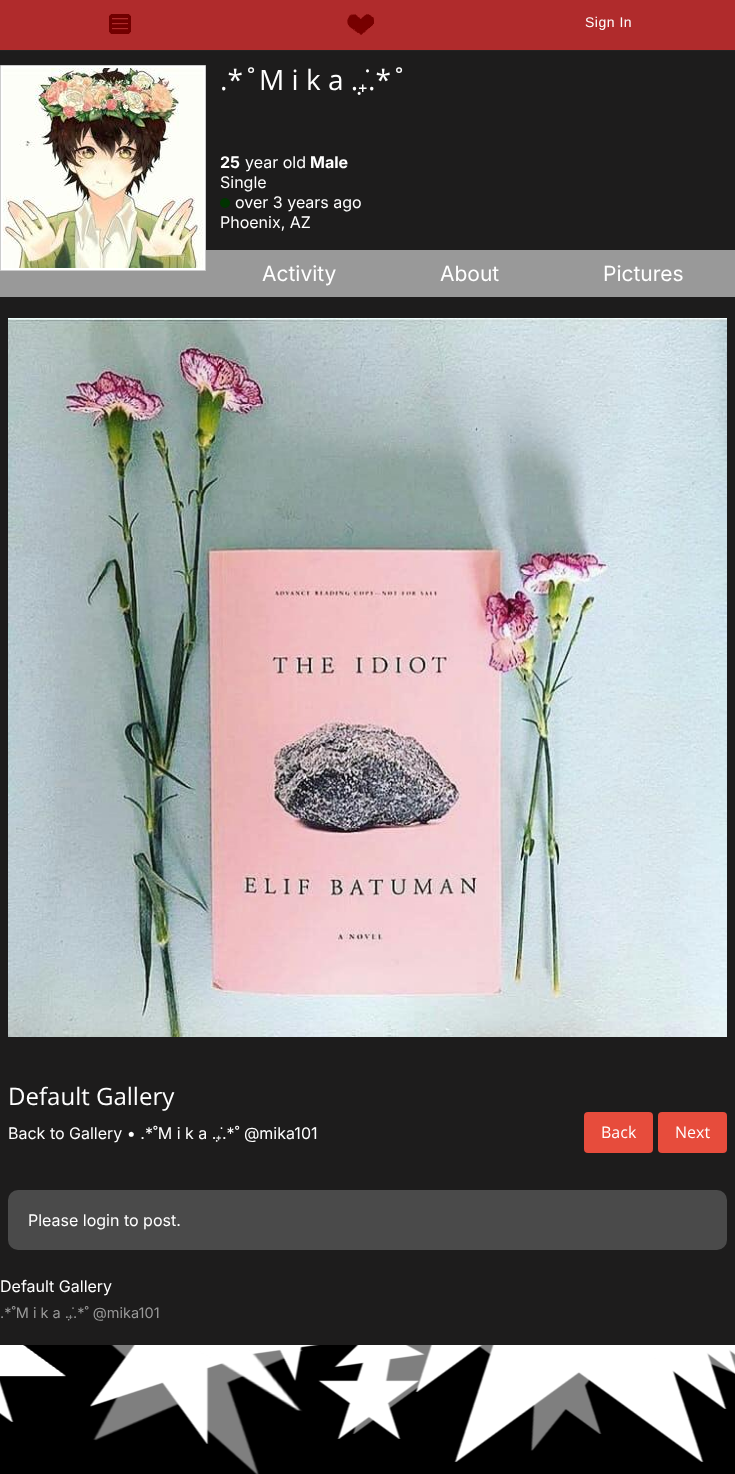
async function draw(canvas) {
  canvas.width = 735;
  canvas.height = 1474;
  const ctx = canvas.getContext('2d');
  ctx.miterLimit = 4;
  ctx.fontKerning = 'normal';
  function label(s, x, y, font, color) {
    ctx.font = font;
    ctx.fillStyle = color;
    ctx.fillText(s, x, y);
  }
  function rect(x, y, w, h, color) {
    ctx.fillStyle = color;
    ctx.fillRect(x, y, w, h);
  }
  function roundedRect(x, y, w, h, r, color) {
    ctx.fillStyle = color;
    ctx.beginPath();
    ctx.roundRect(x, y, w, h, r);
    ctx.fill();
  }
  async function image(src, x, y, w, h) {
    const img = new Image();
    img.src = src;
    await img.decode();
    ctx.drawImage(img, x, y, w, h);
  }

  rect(0, 0, 735, 1474, '#1d1c1c');
  rect(0, 0, 735, 50, '#b02b2c');
  rect(0, 50, 735, 1, '#222');
  await image('assets/img1.png', 109, 14, 22, 20);
  await image('assets/img2.png', 347, 14, 27, 21);
  ctx.letterSpacing = '0.5px';
  label('Sign In', 585, 27, '14px Liberation Sans', '#fff');
  rect(0, 250, 735, 47, '#999');
  ctx.fillStyle = '#fff';
  ctx.beginPath();
  ctx.rect(0.5, 65.5, 205, 205);
  ctx.fill();
  ctx.strokeStyle = '#ccc';
  ctx.stroke();
  await image('assets/img3.png', 3, 68, 200, 200);
  ctx.letterSpacing = '0px';
  label('.*˚M i k a .', 220, 90, '28px Open Sans', '#fff');
  label('₊̣̇', 358, 90, '28px Noto Sans', '#fff');
  label('.*˚', 368, 90, '28px Open Sans', '#fff');
  label('25', 220, 168, 'bold 16px Inter', '#fff');
  label('year old', 245, 168, '16px Inter', '#fff');
  label('Male', 310, 168, 'bold 16px Inter', '#fff');
  label('Single', 220, 188, '16px Inter', '#fff');
  ctx.fillStyle = '#030';
  ctx.beginPath();
  ctx.arc(225, 203, 5, 0, 2 * Math.PI);
  ctx.fill();
  label('over 3 years ago', 235, 208, '16px Inter', '#fff');
  label('Phoenix, AZ', 220, 228, '16px Inter', '#fff');
  label('Activity', 262, 281, '21px Inter', '#fff');
  label('About', 440, 281, '21px Inter', '#fff');
  label('Pictures', 603, 281, '21px Inter', '#fff');
  await image('assets/img4.png', 8, 318, 719, 719);
  label('Default Gallery', 8, 1105, '24px Open Sans', '#fff');
  label('Back to Gallery • .*˚M i k a .', 8, 1139, '16px Inter', '#fff');
  label('.*˚ @mika101', 222, 1139, '16px Inter', '#fff');
  label('₊̣̇', 216, 1139, '16px Noto Sans', '#fff');
  roundedRect(584, 1112, 69, 41, 4, '#e74c3c');
  label('Back', 601, 1138, '16px Open Sans', '#fff');
  roundedRect(658, 1112, 69, 41, 4, '#e74c3c');
  label('Next', 675, 1138, '16px Open Sans', '#fff');
  roundedRect(8, 1190, 719, 60, 10, '#4a4a4a');
  label('Please login to post.', 28, 1226, '16px Inter', '#fff');
  label('Default Gallery', 0, 1292, '16px Inter', '#fff');
  label('.*˚M i k a .', 0, 1318, '14.5px Inter', '#999');
  label('.*˚ @mika101', 73, 1318, '14.5px Inter', '#999');
  label('₊̣̇', 68, 1318, '14.5px Noto Sans', '#999');
  await image('assets/img5.png', 0, 1345, 735, 129);
}

draw(document.querySelector('canvas'));
